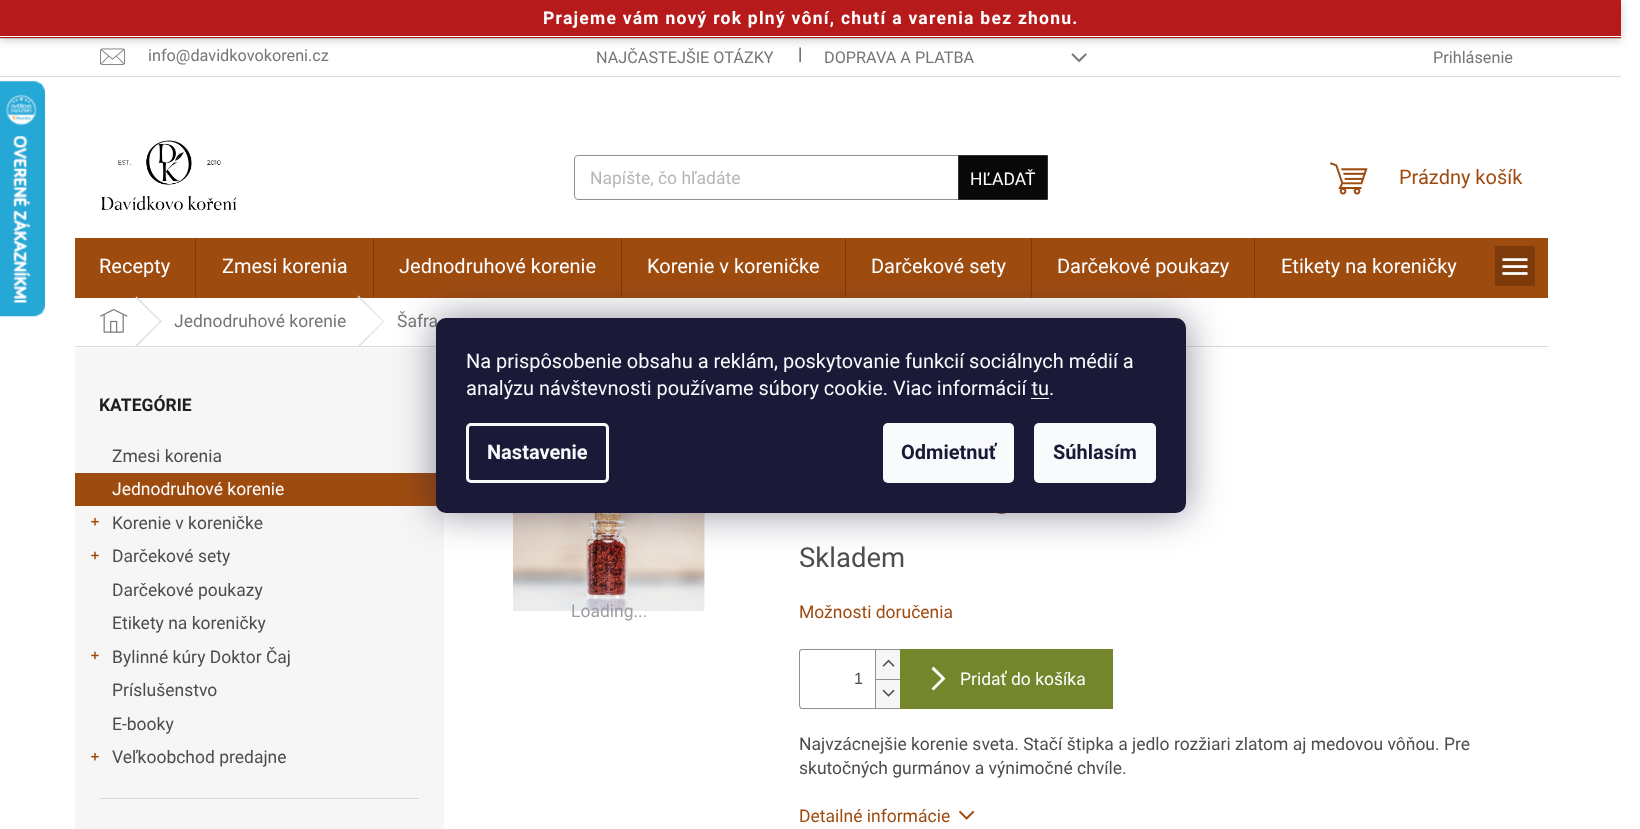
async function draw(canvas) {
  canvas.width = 1640;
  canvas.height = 829;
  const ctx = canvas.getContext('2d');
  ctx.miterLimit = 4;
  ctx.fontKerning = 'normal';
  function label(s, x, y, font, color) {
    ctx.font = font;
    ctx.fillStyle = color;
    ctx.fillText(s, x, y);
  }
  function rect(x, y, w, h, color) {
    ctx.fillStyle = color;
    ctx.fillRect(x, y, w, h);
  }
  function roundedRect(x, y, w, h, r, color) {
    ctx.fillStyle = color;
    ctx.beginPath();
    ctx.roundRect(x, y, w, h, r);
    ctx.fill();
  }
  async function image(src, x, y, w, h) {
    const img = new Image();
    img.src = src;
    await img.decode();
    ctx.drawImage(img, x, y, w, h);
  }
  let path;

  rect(0, 0, 1640, 829, '#fff');
  rect(0, 38, 1621, 1, '#dadada');
  await image('assets/img2.png', 100, 48, 25, 17);
  await image('assets/img3.png', 1071, 53, 16, 10);
  ctx.fillStyle = '#00000033';
  ctx.filter = 'blur(5px)';
  ctx.beginPath();
  ctx.rect(0, 3, 1621, 37);
  ctx.fill();
  ctx.filter = 'none';
  rect(0, 0, 1621, 38, '#b71a1a');
  rect(0, 36, 1621, 1, '#fff');
  ctx.letterSpacing = '1.25px';
  label('Prajeme vám nový rok plný vôní, chutí a varenia bez zhonu.', 543, 24, 'bold 17.5px Roboto', '#fff');
  await image('assets/img1.png', 0, 81, 45, 236);
  rect(0, 76, 1621, 1, '#dadada');
  ctx.letterSpacing = '0px';
  label('info@davidkovokoreni.cz', 148, 61, '16.25px Roboto', '#767676');
  label('NAJČASTEJŠIE OTÁZKY', 596, 63, '16.25px Roboto', '#767676');
  label('|', 798, 60, '17.5px Roboto', '#4d4d4d');
  label('DOPRAVA A PLATBA', 824, 63, '16.25px Roboto', '#767676');
  label('Prihlásenie', 1433, 63, '16.25px Roboto', '#767676');
  await image('assets/img4.png', 101, 140, 136, 71);
  ctx.beginPath();
  ctx.roundRect(574.5, 155.5, 473, 44, 3.5);
  ctx.strokeStyle = '#919191';
  ctx.stroke();
  label('Napíšte, čo hľadáte', 590, 184, '17.5px Roboto', '#b6b6b6');
  ctx.fillStyle = '#080808';
  ctx.beginPath();
  ctx.rect(958.5, 155.5, 89, 44);
  ctx.fill();
  ctx.strokeStyle = '#333';
  ctx.stroke();
  label('HĽADAŤ', 970, 185, '17.5px Roboto', '#fff');
  await image('assets/img5.png', 1330, 162, 38, 33);
  label('Prázdny košík', 1399, 184, '20px Roboto', '#9e4b10');
  rect(75, 238, 1473, 60, '#9e4b10');
  label('Recepty', 99, 273, '20px Roboto', '#fff');
  rect(195, 238, 1, 60, '#7d3b0c');
  label('Zmesi korenia', 222, 273, '20px Roboto', '#fff');
  rect(373, 238, 1, 60, '#7d3b0c');
  label('Jednodruhové korenie', 399, 273, '20px Roboto', '#fff');
  rect(621, 238, 1, 60, '#7d3b0c');
  label('Korenie v koreničke', 647, 273, '20px Roboto', '#fff');
  rect(845, 238, 1, 60, '#7d3b0c');
  label('Darčekové sety', 871, 273, '20px Roboto', '#fff');
  rect(1031, 238, 1, 60, '#7d3b0c');
  label('Darčekové poukazy', 1057, 273, '20px Roboto', '#fff');
  rect(1254, 238, 1, 60, '#7d3b0c');
  label('Etikety na koreničky', 1281, 273, '20px Roboto', '#fff');
  rect(1495, 246, 40, 40, '#7d3b0c');
  await image('assets/img6.png', 1502, 258, 26, 17);
  rect(75, 346, 1473, 1, '#dadada');
  await image('assets/img7.png', 100, 309, 28, 24);
  path = new Path2D('M135.5 297.5L136.5 296.5L162 322L161 322.5Z');
  ctx.fill(path);
  path = new Path2D('M161 320.5L162 321L136.5 346.5L135.5 345.5Z');
  ctx.fill(path);
  label('Jednodruhové korenie', 174, 327, '17.5px Roboto', '#767676');
  ctx.fillStyle = '#dadada';
  path = new Path2D('M357.5 296.5L358.5 295.5L384.5 322L384 322.5Z');
  ctx.fill(path);
  path = new Path2D('M384 320.5L384.5 321L358.5 347.5L357.5 346.5Z');
  ctx.fill(path);
  label('Šafra', 397, 327, '17.5px Roboto', '#767676');
  rect(75, 348, 369, 481, '#f6f6f6');
  rect(100, 798, 319, 1, '#dadada');
  label('KATEGÓRIE', 99, 411, 'bold 17.5px Roboto', '#1f1f1f');
  label('Zmesi korenia', 112, 462, '17.5px Roboto', '#4d4d4d');
  rect(75, 473, 362, 33, '#9e4b10');
  label('Jednodruhové korenie', 112, 495, '17.5px Roboto', '#fff');
  await image('assets/img8.png', 91, 518, 8, 8);
  label('Korenie v koreničke', 112, 529, '17.5px Roboto', '#4d4d4d');
  await image('assets/img9.png', 91, 551, 8, 9);
  label('Darčekové sety', 112, 562, '17.5px Roboto', '#4d4d4d');
  label('Darčekové poukazy', 112, 596, '17.5px Roboto', '#4d4d4d');
  label('Etikety na koreničky', 112, 629, '17.5px Roboto', '#4d4d4d');
  await image('assets/img9.png', 91, 651, 8, 9);
  label('Bylinné kúry Doktor Čaj', 112, 663, '17.5px Roboto', '#4d4d4d');
  label('Príslušenstvo', 112, 696, '17.5px Roboto', '#4d4d4d');
  label('E-booky', 112, 730, '17.5px Roboto', '#4d4d4d');
  await image('assets/img8.png', 91, 753, 8, 8);
  label('Veľkoobchod predajne', 112, 763, '17.5px Roboto', '#4d4d4d');
  await image('assets/img10.png', 513, 513, 192, 99);
  label('Loading...', 571, 617, '17.5px Roboto', '#9e9ea0');
  ctx.beginPath();
  ctx.arc(1001.5, 502.5, 11, 0, 2 * Math.PI);
  ctx.strokeStyle = '#9e4b10';
  ctx.stroke();
  label('Skladem', 799, 567, '27.5px Roboto', '#4d4d4d');
  label('Možnosti doručenia', 799, 618, '17.5px Roboto', '#9e4b10');
  ctx.fillStyle = '#919191';
  path = new Path2D('M802 649H900V709H802C800 709 799 707 799 705V652C799 650 800 649 802 649ZM802 650H900V708H802C801 708 800 706 800 705V652C800 651 801 650 802 650Z');
  ctx.fill(path, 'evenodd');
  label('1', 854, 684, '16.25px Liberation Sans', '#4d4d4d');
  rect(876, 650, 24, 29, '#f6f6f6');
  rect(875, 650, 1, 29, '#919191');
  await image('assets/img11.png', 882, 659, 13, 8);
  rect(876, 680, 24, 28, '#f6f6f6');
  rect(875, 679, 25, 1, '#919191');
  rect(875, 679, 1, 29, '#919191');
  await image('assets/img12.png', 882, 689, 13, 8);
  rect(900, 649, 213, 60, '#74862b');
  ctx.fillStyle = '#fff';
  path = new Path2D('M933.5 690.5L931.5 688.5L941.5 678.5L931.5 669L933.5 666.5L945.5 678.5Z');
  ctx.fill(path);
  label('Pridať do košíka', 960, 685, '17.5px Roboto', '#fff');
  label('Najvzácnejšie korenie sveta. Stačí štipka a jedlo rozžiari zlatom aj medovou vôňou. Pre', 799, 750, '17.5px Roboto', '#4d4d4d');
  label('skutočných gurmánov a výnimočné chvíle.', 799, 774, '17.5px Roboto', '#4d4d4d');
  label('Detailné informácie', 799, 822, '17.5px Roboto', '#9e4b10');
  await image('assets/img13.png', 958, 810, 17, 10);
  ctx.fillStyle = '#1b193980';
  ctx.filter = 'blur(19px)';
  ctx.beginPath();
  ctx.roundRect(436, 318, 750, 195, 10);
  ctx.fill();
  ctx.filter = 'none';
  roundedRect(436, 318, 750, 195, 10, '#1a1937');
  label('Na prispôsobenie obsahu a reklám, poskytovanie funkcií sociálnych médií a', 466, 368, '20px Roboto', '#f8fafb');
  label('analýzu návštevnosti používame súbory cookie. Viac informácií tu.', 466, 395, '20px Roboto', '#f8fafb');
  rect(1031, 398, 18, 1, '#f8fafb');
  ctx.beginPath();
  ctx.roundRect(467.5, 424.5, 140, 57, 3.5);
  ctx.strokeStyle = '#f8fafb';
  ctx.lineWidth = 3;
  ctx.stroke();
  label('Nastavenie', 487, 459, 'bold 20px Roboto', '#f8fafb');
  roundedRect(883, 423, 131, 60, 5, '#f8fafb');
  label('Odmietnuť', 901, 459, 'bold 20px Roboto', '#1a1937');
  roundedRect(1034, 423, 122, 60, 5, '#f8fafb');
  label('Súhlasím', 1053, 459, 'bold 20px Roboto', '#1a1937');
}

draw(document.querySelector('canvas'));
